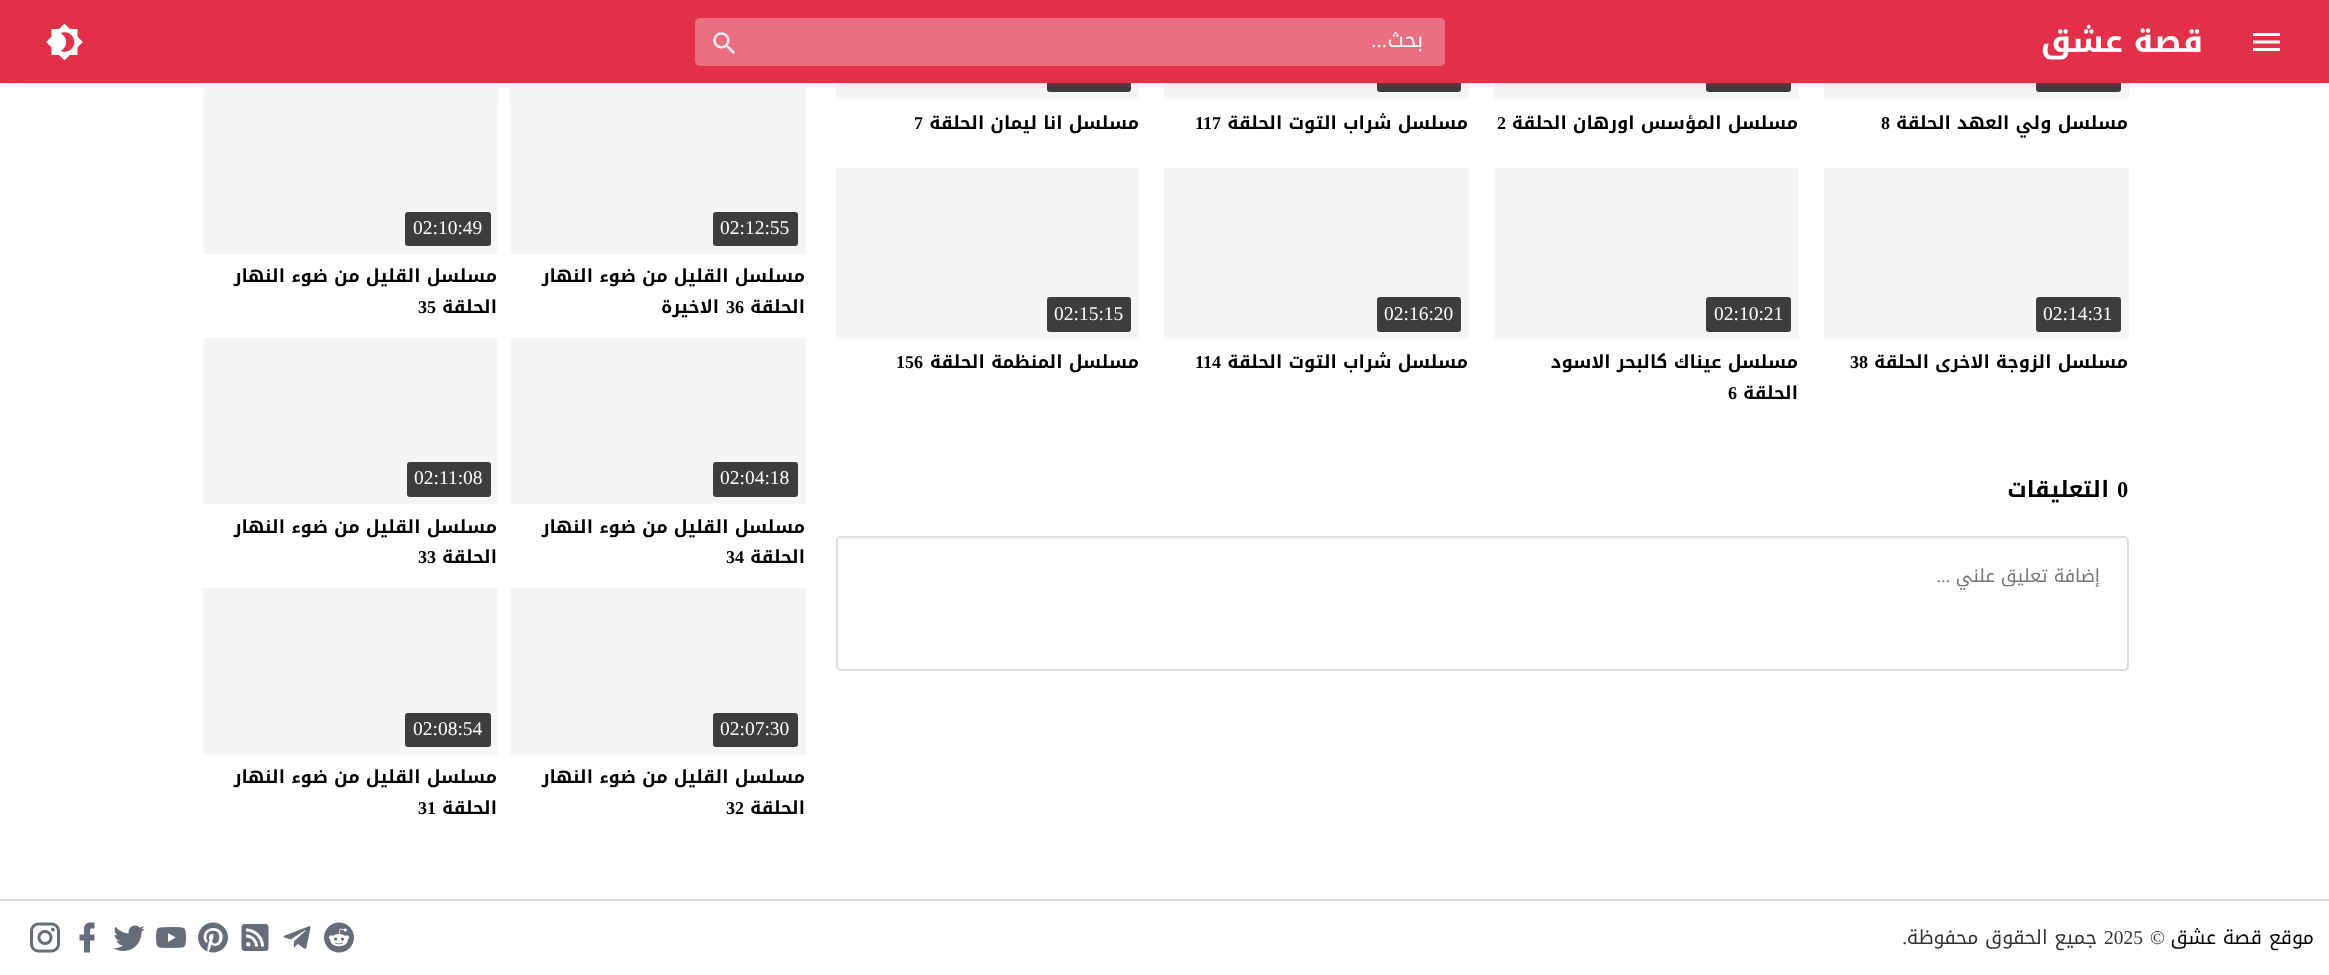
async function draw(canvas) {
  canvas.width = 2329;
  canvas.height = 975;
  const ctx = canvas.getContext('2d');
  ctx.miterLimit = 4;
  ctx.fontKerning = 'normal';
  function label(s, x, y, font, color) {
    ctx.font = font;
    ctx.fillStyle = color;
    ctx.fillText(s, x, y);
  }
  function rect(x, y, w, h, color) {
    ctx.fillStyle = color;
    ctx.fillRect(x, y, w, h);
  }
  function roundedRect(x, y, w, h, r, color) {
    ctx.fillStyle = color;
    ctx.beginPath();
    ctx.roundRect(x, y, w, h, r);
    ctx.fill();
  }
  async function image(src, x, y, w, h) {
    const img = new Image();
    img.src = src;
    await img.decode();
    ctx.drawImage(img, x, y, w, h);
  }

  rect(0, 0, 2329, 975, '#fff');
  rect(1824, 83, 305, 16, '#f5f5f5');
  roundedRect(2036, 57, 85, 35, 3, '#3d3d3d');
  rect(1494, 83, 305, 16, '#f5f5f5');
  roundedRect(1706, 57, 85, 35, 3, '#3d3d3d');
  rect(1164, 83, 305, 16, '#f5f5f5');
  roundedRect(1377, 57, 84, 35, 3, '#3d3d3d');
  rect(836, 83, 303, 16, '#f5f5f5');
  roundedRect(1047, 57, 84, 35, 3, '#3d3d3d');
  rect(510, 87, 296, 167, '#f5f5f5');
  rect(203, 87, 295, 167, '#f5f5f5');
  ctx.fillStyle = '#999';
  ctx.filter = 'blur(4px)';
  ctx.beginPath();
  ctx.rect(8, 11, 2314, 67);
  ctx.fill();
  ctx.filter = 'none';
  rect(0, 0, 2329, 83, '#e33049');
  await image('assets/img1.png', 2253, 33, 27, 18);
  ctx.direction = 'rtl';
  label('قصة عشق', 2203, 52, 'bold 31.5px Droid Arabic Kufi', '#fdfdfd');
  roundedRect(695, 18, 750, 48, 5, '#eb6f80');
  ctx.beginPath();
  ctx.roundRect(770, 18, 675, 48, [0, 5, 5, 0]);
  ctx.fill();
  label('بحث', 1423, 47, '21px Droid Arabic Kufi', '#fdfdfd');
  label('...', 1387, 47, '21px Liberation Serif', '#fdfdfd');
  await image('assets/img2.png', 713, 32, 22, 22);
  await image('assets/img3.png', 46, 23, 37, 38);
  label('مسلسل ولي العهد الحلقة', 2128, 129, 'bold 18px Droid Arabic Kufi', '#000');
  ctx.direction = 'ltr';
  label('8', 1881, 129, 'bold 18px Liberation Serif', '#000');
  ctx.direction = 'rtl';
  label('مسلسل المؤسس اورهان الحلقة', 1798, 129, 'bold 18px Droid Arabic Kufi', '#000');
  ctx.direction = 'ltr';
  label('2', 1497, 129, 'bold 18px Liberation Serif', '#000');
  ctx.direction = 'rtl';
  label('مسلسل شراب التوت الحلقة', 1468, 129, 'bold 18px Droid Arabic Kufi', '#000');
  ctx.direction = 'ltr';
  label('117', 1195, 129, 'bold 18px Liberation Serif', '#000');
  ctx.direction = 'rtl';
  label('مسلسل انا ليمان الحلقة', 1139, 129, 'bold 18px Droid Arabic Kufi', '#000');
  ctx.direction = 'ltr';
  label('7', 914, 129, 'bold 18px Liberation Serif', '#000');
  rect(1824, 168, 305, 171, '#f5f5f5');
  roundedRect(2036, 297, 85, 35, 3, '#3d3d3d');
  label('02:14:31', 2043, 320, '19.5px Liberation Serif', '#fdfdfd');
  ctx.direction = 'rtl';
  label('مسلسل الزوجة الاخرى الحلقة', 2128, 368, 'bold 18px Droid Arabic Kufi', '#000');
  ctx.direction = 'ltr';
  label('38', 1850, 368, 'bold 18px Liberation Serif', '#000');
  rect(1494, 168, 305, 171, '#f5f5f5');
  roundedRect(1706, 297, 85, 35, 3, '#3d3d3d');
  label('02:10:21', 1714, 320, '19.5px Liberation Serif', '#fdfdfd');
  ctx.direction = 'rtl';
  label('مسلسل عيناك كالبحر الاسود', 1798, 368, 'bold 18px Droid Arabic Kufi', '#000');
  label('الحلقة', 1798, 399, 'bold 18px Droid Arabic Kufi', '#000');
  ctx.direction = 'ltr';
  label('6', 1728, 399, 'bold 18px Liberation Serif', '#000');
  rect(1164, 168, 305, 171, '#f5f5f5');
  roundedRect(1377, 297, 84, 35, 3, '#3d3d3d');
  label('02:16:20', 1384, 320, '19.5px Liberation Serif', '#fdfdfd');
  ctx.direction = 'rtl';
  label('مسلسل شراب التوت الحلقة', 1468, 368, 'bold 18px Droid Arabic Kufi', '#000');
  ctx.direction = 'ltr';
  label('114', 1195, 368, 'bold 18px Liberation Serif', '#000');
  rect(836, 168, 303, 171, '#f5f5f5');
  roundedRect(1047, 297, 84, 35, 3, '#3d3d3d');
  label('02:15:15', 1054, 320, '19.5px Liberation Serif', '#fdfdfd');
  ctx.direction = 'rtl';
  label('مسلسل المنظمة الحلقة', 1139, 368, 'bold 18px Droid Arabic Kufi', '#000');
  ctx.direction = 'ltr';
  label('156', 896, 368, 'bold 18px Liberation Serif', '#000');
  label('0', 2117, 497, 'bold 22.5px Liberation Serif', '#000');
  ctx.direction = 'rtl';
  label('التعليقات', 2109, 497, 'bold 22.5px Droid Arabic Kufi', '#000');
  ctx.beginPath();
  ctx.roundRect(837, 537, 1291, 133, 4);
  ctx.strokeStyle = '#ddd';
  ctx.lineWidth = 2;
  ctx.stroke();
  label('إضافة تعليق علني', 2100, 582, '18px Droid Arabic Kufi', '#757575');
  label('...', 1950, 582, '18px Liberation Serif', '#757575');
  roundedRect(713, 212, 85, 34, 3, '#3d3d3d');
  ctx.direction = 'ltr';
  label('02:12:55', 720, 234, '19.5px Liberation Serif', '#fdfdfd');
  ctx.direction = 'rtl';
  label('مسلسل القليل من ضوء النهار', 805, 282, 'bold 18px Droid Arabic Kufi', '#000');
  label('الحلقة', 805, 313, 'bold 18px Droid Arabic Kufi', '#000');
  ctx.direction = 'ltr';
  label('36', 726, 313, 'bold 18px Liberation Serif', '#000');
  ctx.direction = 'rtl';
  label('الاخيرة', 719, 313, 'bold 18px Droid Arabic Kufi', '#000');
  roundedRect(405, 212, 86, 34, 3, '#3d3d3d');
  ctx.direction = 'ltr';
  label('02:10:49', 413, 234, '19.5px Liberation Serif', '#fdfdfd');
  ctx.direction = 'rtl';
  label('مسلسل القليل من ضوء النهار', 497, 282, 'bold 18px Droid Arabic Kufi', '#000');
  label('الحلقة', 497, 313, 'bold 18px Droid Arabic Kufi', '#000');
  ctx.direction = 'ltr';
  label('35', 418, 313, 'bold 18px Liberation Serif', '#000');
  rect(510, 338, 296, 166, '#f5f5f5');
  roundedRect(713, 462, 85, 35, 3, '#3d3d3d');
  label('02:04:18', 720, 484, '19.5px Liberation Serif', '#fdfdfd');
  ctx.direction = 'rtl';
  label('مسلسل القليل من ضوء النهار', 805, 533, 'bold 18px Droid Arabic Kufi', '#000');
  label('الحلقة', 805, 563, 'bold 18px Droid Arabic Kufi', '#000');
  ctx.direction = 'ltr';
  label('34', 726, 563, 'bold 18px Liberation Serif', '#000');
  rect(203, 338, 295, 166, '#f5f5f5');
  roundedRect(407, 462, 84, 35, 3, '#3d3d3d');
  label('02:11:08', 414, 484, '19.5px Liberation Serif', '#fdfdfd');
  ctx.direction = 'rtl';
  label('مسلسل القليل من ضوء النهار', 497, 533, 'bold 18px Droid Arabic Kufi', '#000');
  label('الحلقة', 497, 563, 'bold 18px Droid Arabic Kufi', '#000');
  ctx.direction = 'ltr';
  label('33', 418, 563, 'bold 18px Liberation Serif', '#000');
  rect(510, 588, 296, 167, '#f5f5f5');
  roundedRect(713, 713, 85, 34, 3, '#3d3d3d');
  label('02:07:30', 720, 735, '19.5px Liberation Serif', '#fdfdfd');
  ctx.direction = 'rtl';
  label('مسلسل القليل من ضوء النهار', 805, 783, 'bold 18px Droid Arabic Kufi', '#000');
  label('الحلقة', 805, 814, 'bold 18px Droid Arabic Kufi', '#000');
  ctx.direction = 'ltr';
  label('32', 726, 814, 'bold 18px Liberation Serif', '#000');
  rect(203, 588, 295, 167, '#f5f5f5');
  roundedRect(405, 713, 86, 34, 3, '#3d3d3d');
  label('02:08:54', 413, 735, '19.5px Liberation Serif', '#fdfdfd');
  ctx.direction = 'rtl';
  label('مسلسل القليل من ضوء النهار', 497, 783, 'bold 18px Droid Arabic Kufi', '#000');
  label('الحلقة', 497, 814, 'bold 18px Droid Arabic Kufi', '#000');
  ctx.direction = 'ltr';
  label('31', 418, 814, 'bold 18px Liberation Serif', '#000');
  rect(0, 899, 2329, 2, '#ddd');
  ctx.direction = 'rtl';
  label('موقع قصة عشق', 2314, 944, '19.5px Droid Arabic Kufi', '#000');
  ctx.direction = 'ltr';
  label('©', 2150, 944, '19.5px Liberation Serif', '#333');
  label('2025', 2104, 944, '19.5px Liberation Serif', '#333');
  ctx.direction = 'rtl';
  label('جميع الحقوق محفوظة', 2097, 944, '19.5px Droid Arabic Kufi', '#333');
  label('.', 1907, 944, '19.5px Liberation Serif', '#333');
  await image('assets/img4.png', 324, 922, 30, 31);
  await image('assets/img5.png', 283, 926, 28, 23);
  await image('assets/img6.png', 241, 924, 28, 27);
  await image('assets/img7.png', 198, 922, 30, 31);
  await image('assets/img8.png', 156, 927, 30, 21);
  await image('assets/img9.png', 113, 925, 32, 26);
  await image('assets/img10.png', 79, 922, 16, 31);
  await image('assets/img11.png', 30, 922, 30, 31);
}

draw(document.querySelector('canvas'));
